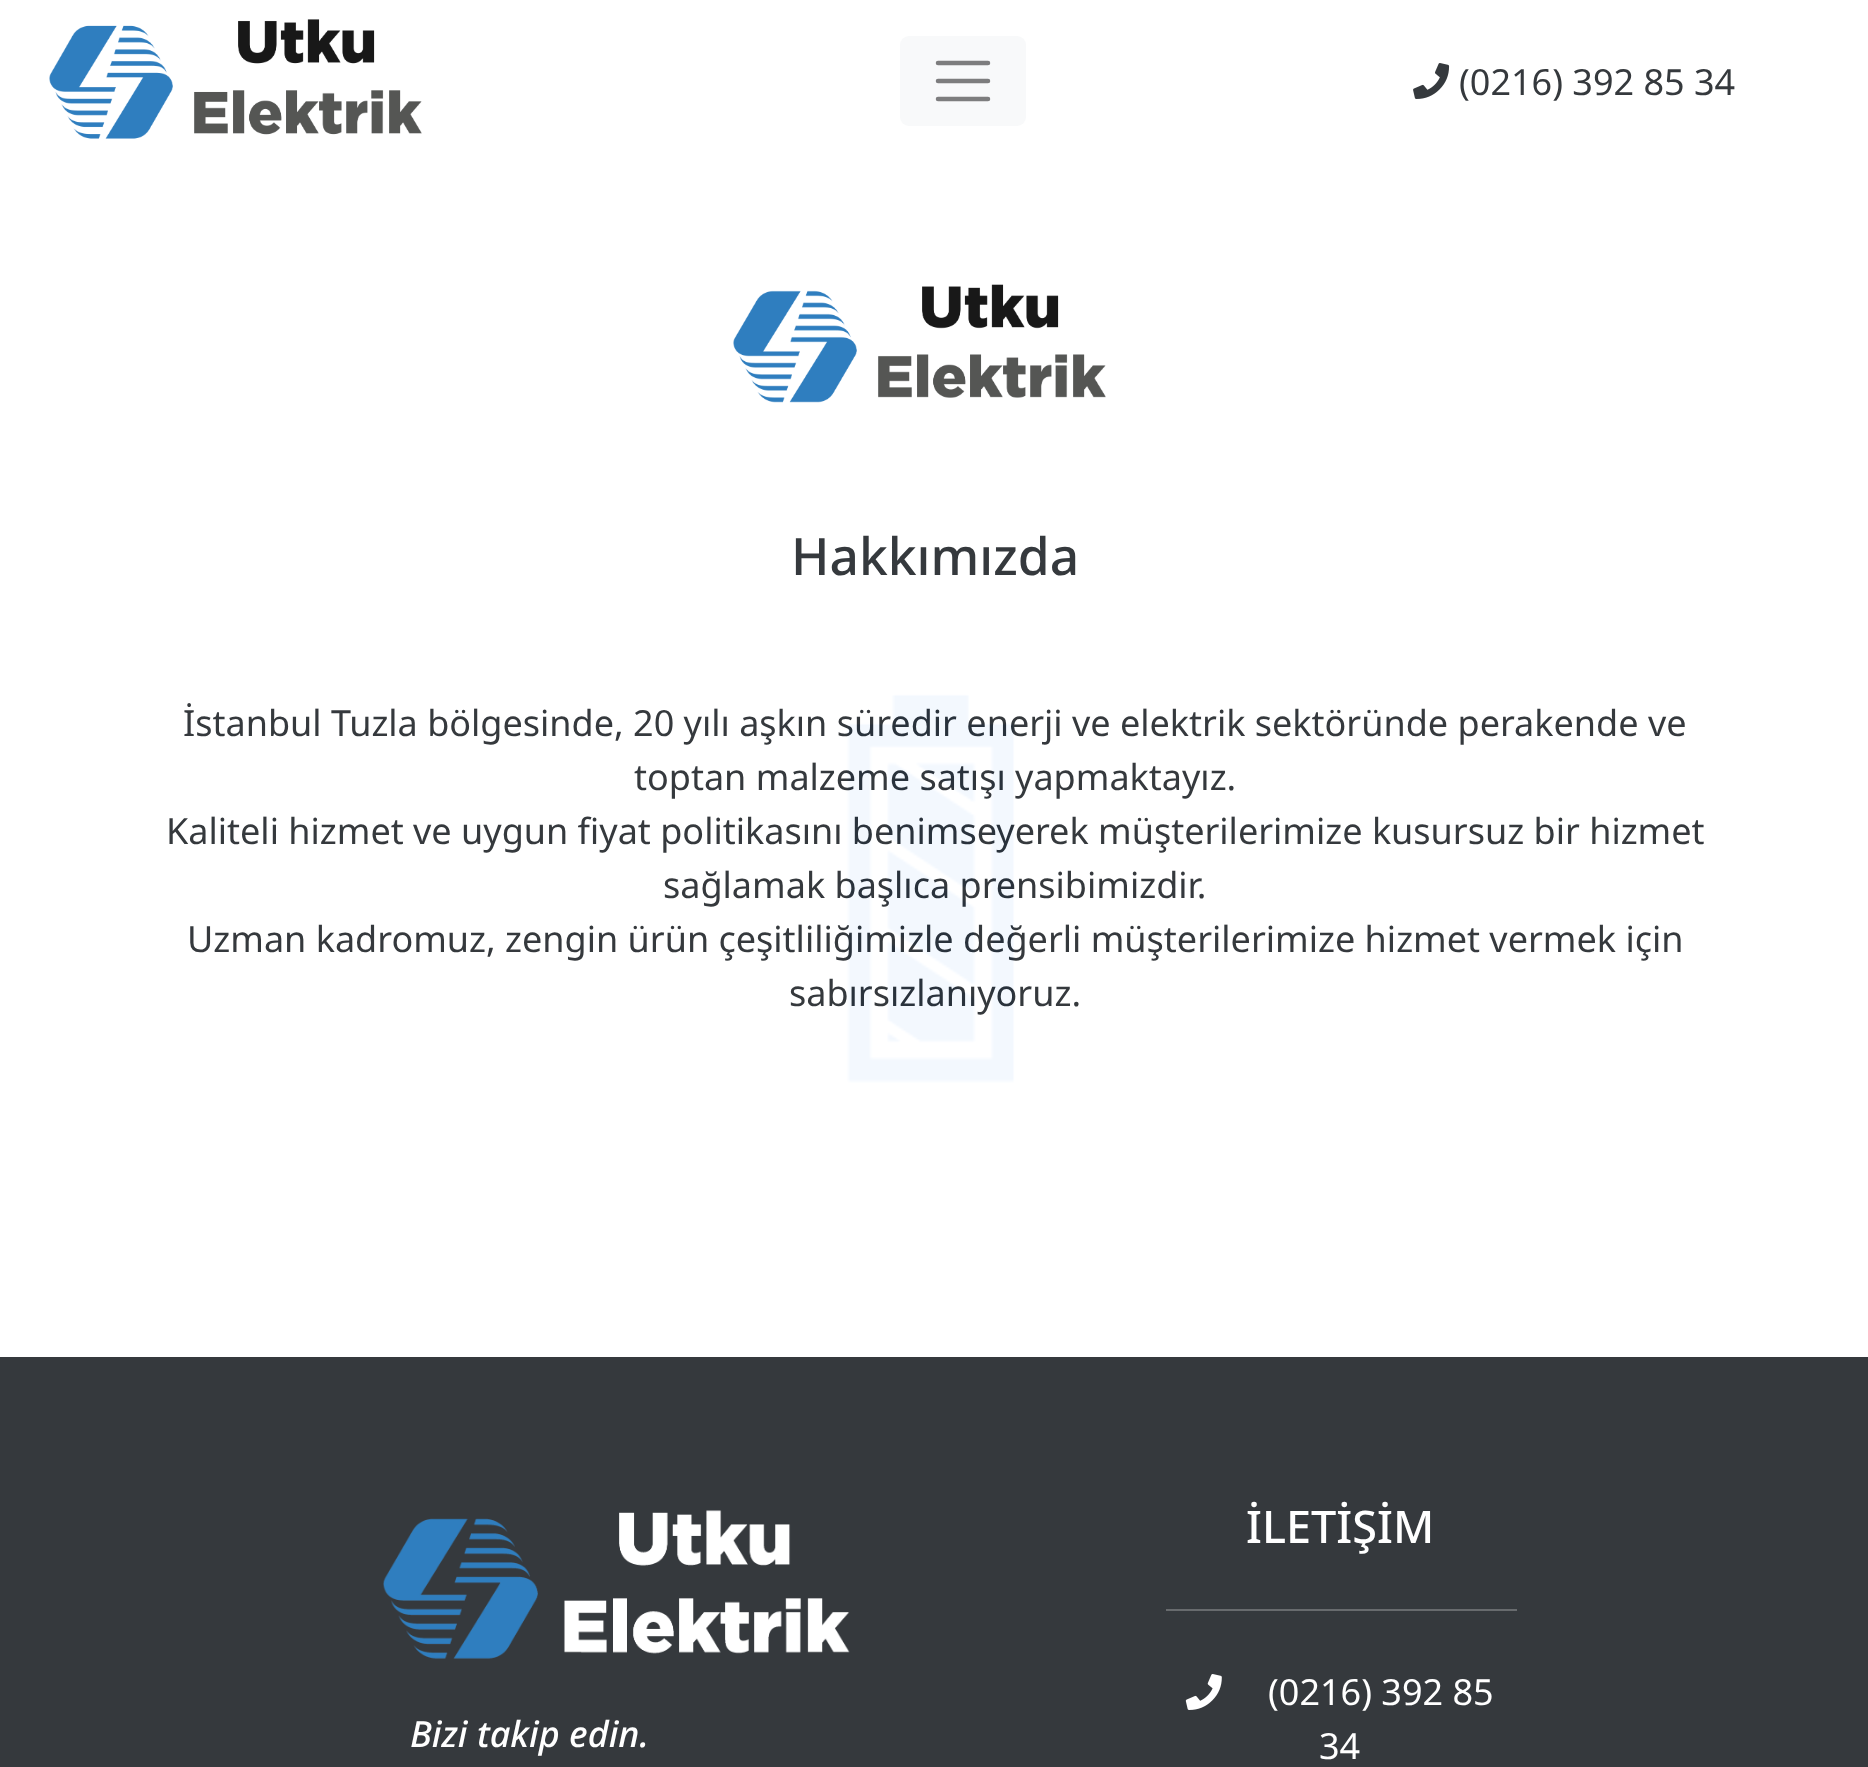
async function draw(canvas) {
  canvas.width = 1868;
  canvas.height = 1767;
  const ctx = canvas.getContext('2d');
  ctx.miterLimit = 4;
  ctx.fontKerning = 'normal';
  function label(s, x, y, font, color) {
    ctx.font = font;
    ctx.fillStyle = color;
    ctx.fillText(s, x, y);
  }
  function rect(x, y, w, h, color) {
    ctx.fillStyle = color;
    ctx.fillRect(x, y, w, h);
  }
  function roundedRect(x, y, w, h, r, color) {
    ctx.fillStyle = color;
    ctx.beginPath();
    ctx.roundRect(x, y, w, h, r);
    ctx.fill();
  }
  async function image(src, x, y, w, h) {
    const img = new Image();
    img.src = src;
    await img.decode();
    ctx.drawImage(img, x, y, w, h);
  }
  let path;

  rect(0, 0, 1868, 1767, '#fff');
  await image('assets/img2.png', 49, 19, 373, 120);
  roundedRect(900, 36, 126, 90, 9, '#f8f9fa');
  path = new Path2D('M938 63H988M938 81H988M938 99H988');
  ctx.strokeStyle = '#777778';
  ctx.lineWidth = 4.5;
  ctx.lineCap = 'round';
  ctx.stroke(path);
  await image('assets/img3.png', 1413, 63, 37, 36);
  label('(0216) 392 85 34', 1459, 95, '36px Noto Sans', '#2c3034');
  await image('assets/img4.png', 733, 284, 373, 119);
  label('Hakkımızda', 791, 575, '500 51.5px Noto Sans', '#2c3034');
  label('İstanbul Tuzla bölgesinde, 20 yılı aşkın süredir enerji ve elektrik sektöründe perakende ve', 183, 736, '36px Noto Sans', '#2c3034');
  label('toptan malzeme satışı yapmaktayız.', 634, 790, '36px Noto Sans', '#2c3034');
  label('Kaliteli hizmet ve uygun fiyat politikasını benimseyerek müşterilerimize kusursuz bir hizmet', 166, 844, '36px Noto Sans', '#2c3034');
  label('sağlamak başlıca prensibimizdir.', 663, 898, '36px Noto Sans', '#2c3034');
  label('Uzman kadromuz, zengin ürün çeşitliliğimizle değerli müşterilerimize hizmet vermek için', 187, 952, '36px Noto Sans', '#2c3034');
  label('sabırsızlanıyoruz.', 789, 1006, '36px Noto Sans', '#2c3034');
  rect(0, 1357, 1868, 410, '#2c3034');
  await image('assets/img5.png', 383, 1510, 467, 149);
  label('Bizi takip edin.', 410, 1747, 'italic 500 36px Noto Sans', '#fff');
  label('İLETİŞİM', 1246, 1543, '500 45px Noto Sans', '#fff');
  rect(1166, 1609, 351, 2, '#616467');
  await image('assets/img6.png', 1185, 1674, 37, 36);
  label('(0216) 392 85', 1268, 1705, '36px Noto Sans', '#fff');
  label('34', 1319, 1759, '36px Noto Sans', '#fff');
  await image('assets/img1.png', 0, 19, 1868, 1748);
}

draw(document.querySelector('canvas'));
